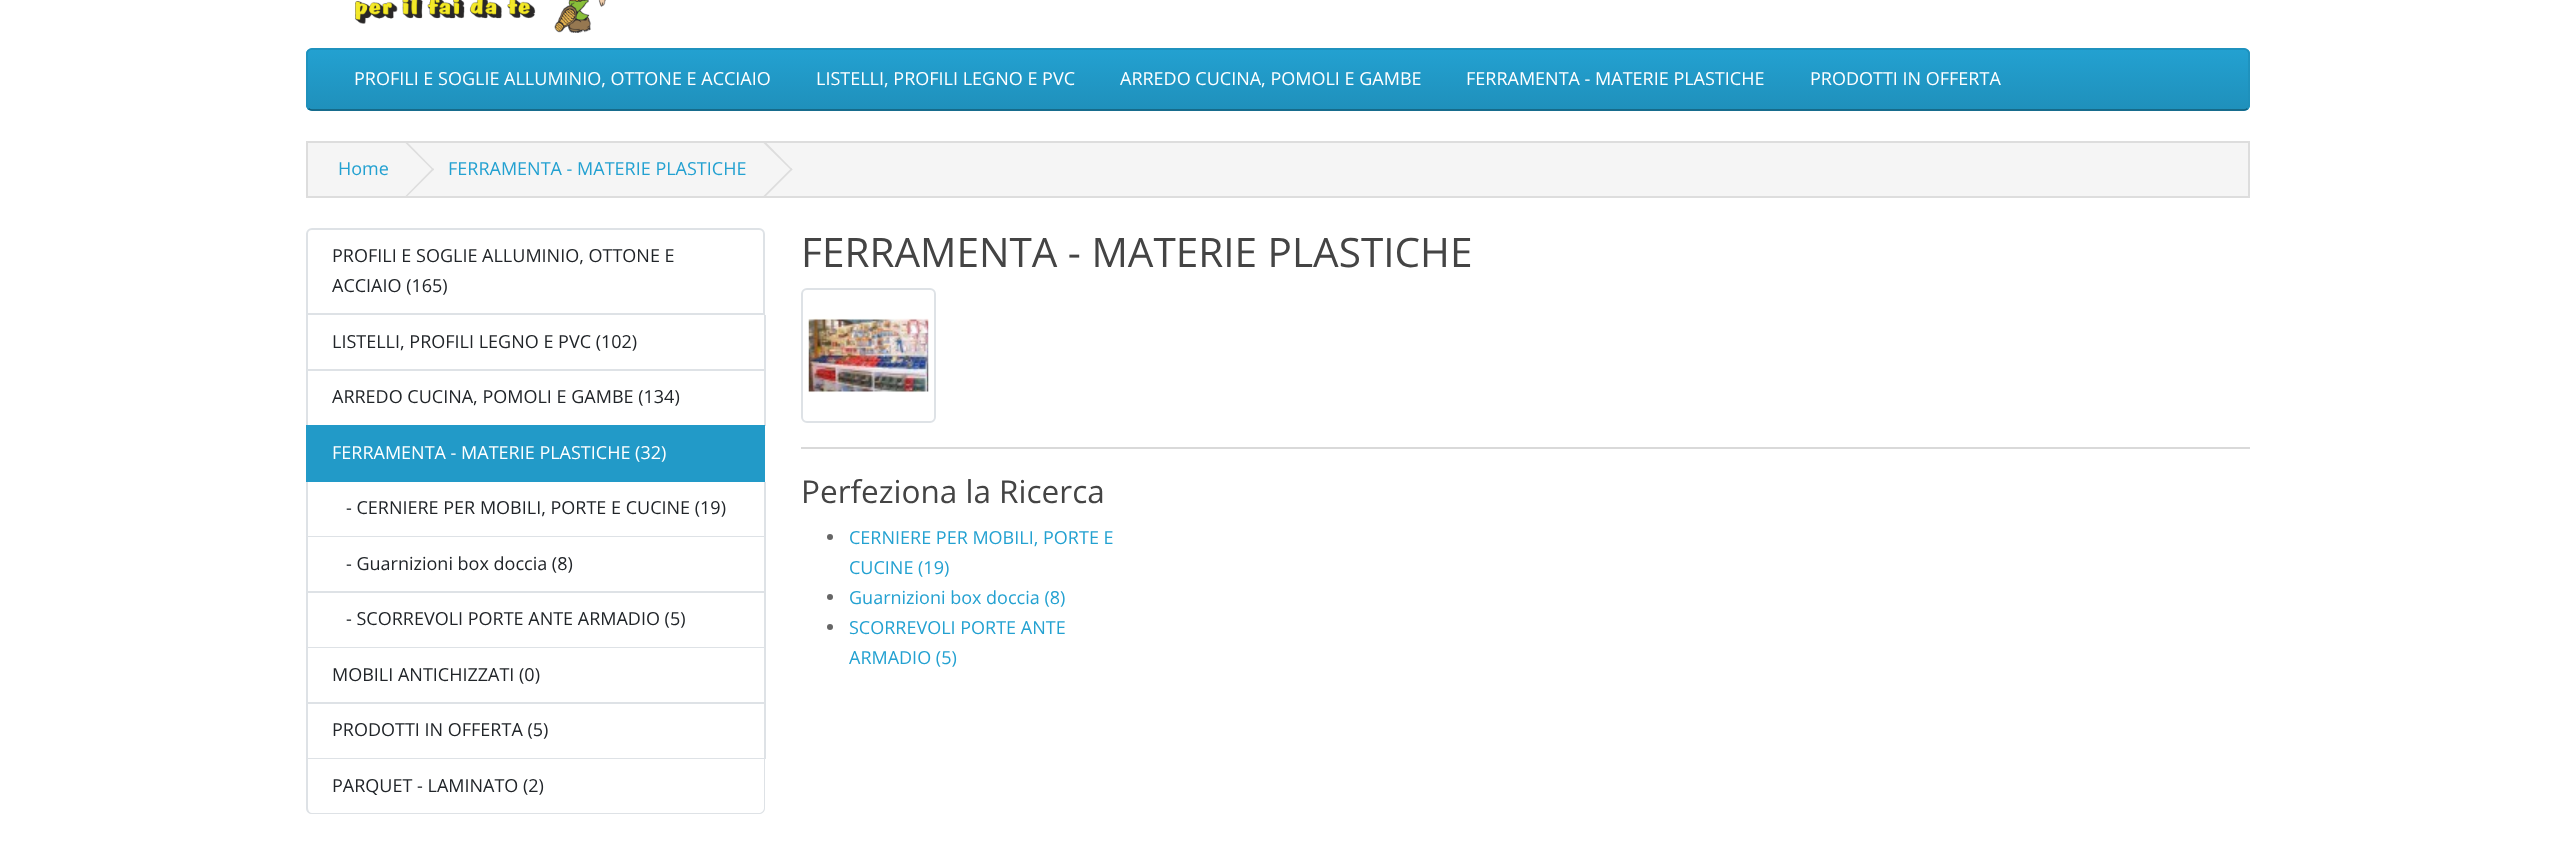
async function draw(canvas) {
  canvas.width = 2555;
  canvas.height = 848;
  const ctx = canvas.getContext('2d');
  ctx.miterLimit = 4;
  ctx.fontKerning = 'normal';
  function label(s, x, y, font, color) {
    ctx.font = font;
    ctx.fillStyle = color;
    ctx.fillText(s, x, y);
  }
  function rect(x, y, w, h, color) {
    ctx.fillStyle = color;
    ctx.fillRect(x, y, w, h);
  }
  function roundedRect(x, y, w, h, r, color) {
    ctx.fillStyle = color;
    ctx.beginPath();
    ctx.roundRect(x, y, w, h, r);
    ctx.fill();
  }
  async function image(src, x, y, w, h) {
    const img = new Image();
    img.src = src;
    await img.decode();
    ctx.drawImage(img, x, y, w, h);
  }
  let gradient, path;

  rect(0, 0, 2555, 848, '#fff');
  await image('assets/img1.png', 355, 0, 251, 33);
  roundedRect(306, 48, 1944, 63, 6, '#229ac8');
  ctx.save();
  ctx.beginPath();
  ctx.roundRect(306, 48, 1944, 63, 6);
  ctx.clip();
  gradient = ctx.createLinearGradient(1278, 49, 1278, 110);
  gradient.addColorStop(0, '#23a1d1');
  gradient.addColorStop(1, '#1f90bb');
  ctx.fillStyle = gradient;
  ctx.fillRect(306, 50, 1944, 60);
  ctx.restore();
  path = new Path2D('M2247.5 108.5C2246.5 109.5 2245.5 110 2244 110H312C310.5 110 309.5 109.5 308.5 108.5');
  ctx.strokeStyle = '#145e7a';
  ctx.lineWidth = 1.5;
  ctx.stroke(path);
  path = new Path2D('M308.5 108.5C307.5 107.5 307 106.5 307 105V54C307 52.5 307.5 51.5 308.5 50.5C309.5 49.5 310.5 49 312 49H2244C2245.5 49 2246.5 49.5 2247.5 50.5C2248.5 51.5 2249 52.5 2249 54V105C2249 106.5 2248.5 107.5 2247.5 108.5');
  ctx.strokeStyle = '#1f90bb';
  ctx.stroke(path);
  label('PROFILI E SOGLIE ALLUMINIO, OTTONE E ACCIAIO', 354, 85, '18px Open Sans', '#fff');
  label('LISTELLI, PROFILI LEGNO E PVC', 816, 85, '18px Open Sans', '#fff');
  label('ARREDO CUCINA, POMOLI E GAMBE', 1120, 85, '18px Open Sans', '#fff');
  label('FERRAMENTA - MATERIE PLASTICHE', 1466, 85, '18px Open Sans', '#fff');
  label('PRODOTTI IN OFFERTA', 1810, 85, '18px Open Sans', '#fff');
  ctx.fillStyle = '#f5f5f5';
  ctx.beginPath();
  ctx.rect(307, 142, 1942, 55);
  ctx.fill();
  ctx.strokeStyle = '#ddd';
  ctx.lineWidth = 2;
  ctx.stroke();
  label('Home', 338, 175, '18px Open Sans', '#23a1d1');
  ctx.fillStyle = '#ddd';
  path = new Path2D('M405.5 143L406.5 141.5L434 169.5L433 170.5Z');
  ctx.fill(path);
  path = new Path2D('M405.5 196L433 168L434 169.5L406.5 197Z');
  ctx.fill(path);
  label('FERRAMENTA - MATERIE PLASTICHE', 448, 175, '18px Open Sans', '#23a1d1');
  ctx.fillStyle = '#ddd';
  path = new Path2D('M763.5 143L765 141.5L792.5 169.5L791.5 170.5Z');
  ctx.fill(path);
  path = new Path2D('M763.5 196L791.5 168L792.5 169.5L765 197Z');
  ctx.fill(path);
  ctx.beginPath();
  ctx.roundRect(307, 229, 457, 85, [5, 5, 0, 0]);
  ctx.strokeStyle = '#dee2e6';
  ctx.stroke();
  label('PROFILI E SOGLIE ALLUMINIO, OTTONE E', 332, 262, '18px Open Sans', '#212529');
  label('ACCIAIO (165)', 332, 292, '18px Open Sans', '#212529');
  rect(764, 315, 2, 111, '#dee2e6');
  rect(306, 369, 459, 2, '#dee2e6');
  rect(306, 315, 2, 111, '#dee2e6');
  label('LISTELLI, PROFILI LEGNO E PVC (102)', 332, 348, '18px Open Sans', '#212529');
  label('ARREDO CUCINA, POMOLI E GAMBE (134)', 332, 403, '18px Open Sans', '#212529');
  rect(306, 425, 459, 57, '#229ac8');
  label('FERRAMENTA - MATERIE PLASTICHE (32)', 332, 459, '18px Open Sans', '#fff');
  rect(764, 482, 2, 277, '#dee2e6');
  rect(306, 536, 459, 1, '#dee2e6');
  rect(306, 482, 2, 55, '#dee2e6');
  label('- CERNIERE PER MOBILI, PORTE E CUCINE (19)', 346, 514, '18px Open Sans', '#212529');
  rect(306, 591, 459, 2, '#dee2e6');
  rect(306, 537, 2, 56, '#dee2e6');
  label('- Guarnizioni box doccia (8)', 346, 570, '18px Open Sans', '#212529');
  rect(306, 647, 459, 1, '#dee2e6');
  rect(306, 593, 2, 55, '#dee2e6');
  label('- SCORREVOLI PORTE ANTE ARMADIO (5)', 346, 625, '18px Open Sans', '#212529');
  rect(306, 702, 459, 2, '#dee2e6');
  rect(306, 648, 2, 56, '#dee2e6');
  label('MOBILI ANTICHIZZATI (0)', 332, 681, '18px Open Sans', '#212529');
  rect(306, 758, 459, 1, '#dee2e6');
  rect(306, 704, 2, 55, '#dee2e6');
  label('PRODOTTI IN OFFERTA (5)', 332, 736, '18px Open Sans', '#212529');
  ctx.fillStyle = '#dee2e6';
  path = new Path2D('M306 759H765V808C765 812 762 814 759 814H312C309 814 306 812 306 808ZM308 759H764V808C764 811 761 813 759 813H312C310 813 308 811 308 808Z');
  ctx.fill(path, 'evenodd');
  label('PARQUET - LAMINATO (2)', 332, 792, '18px Open Sans', '#212529');
  label('FERRAMENTA - MATERIE PLASTICHE', 801, 267, '40.5px Open Sans', '#444');
  ctx.beginPath();
  ctx.roundRect(802, 289, 133, 133, 5);
  ctx.stroke();
  await image('assets/img2.png', 808, 318, 121, 75);
  rect(801, 447, 1449, 2, '#d9d9d9');
  label('Perfeziona la Ricerca', 801, 503, '31.5px Open Sans', '#444');
  ctx.fillStyle = '#666';
  ctx.beginPath();
  ctx.arc(830, 537, 3, 0, 2 * Math.PI);
  ctx.fill();
  label('CERNIERE PER MOBILI, PORTE E', 849, 544, '18px Open Sans', '#23a1d1');
  label('CUCINE (19)', 849, 574, '18px Open Sans', '#23a1d1');
  ctx.fillStyle = '#666';
  ctx.beginPath();
  ctx.arc(830, 597, 3, 0, 2 * Math.PI);
  ctx.fill();
  label('Guarnizioni box doccia (8)', 849, 604, '18px Open Sans', '#23a1d1');
  ctx.fillStyle = '#666';
  ctx.beginPath();
  ctx.arc(830, 627, 3, 0, 2 * Math.PI);
  ctx.fill();
  label('SCORREVOLI PORTE ANTE', 849, 634, '18px Open Sans', '#23a1d1');
  label('ARMADIO (5)', 849, 664, '18px Open Sans', '#23a1d1');
}

draw(document.querySelector('canvas'));
